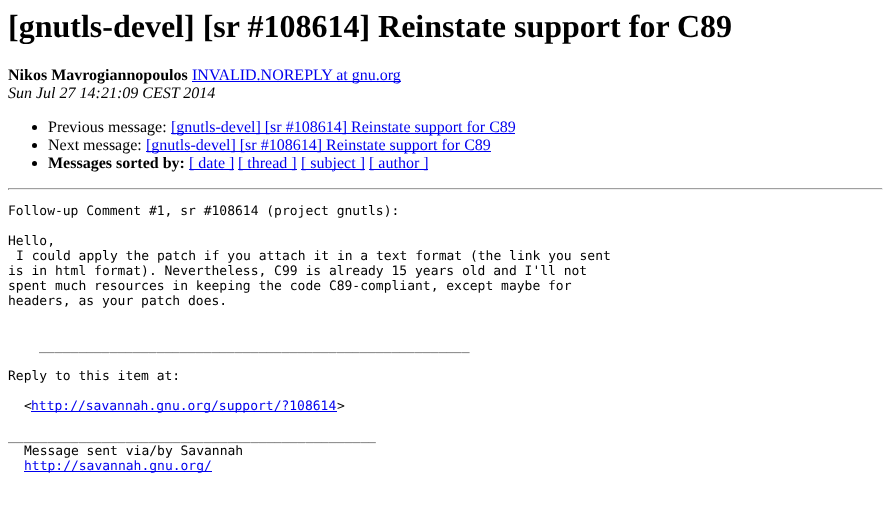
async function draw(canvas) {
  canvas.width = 891;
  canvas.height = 512;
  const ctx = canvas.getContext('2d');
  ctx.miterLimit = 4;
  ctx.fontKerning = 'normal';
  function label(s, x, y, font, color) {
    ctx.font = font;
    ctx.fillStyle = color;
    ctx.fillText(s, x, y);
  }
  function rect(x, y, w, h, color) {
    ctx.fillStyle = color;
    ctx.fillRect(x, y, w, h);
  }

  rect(0, 0, 891, 512, '#fff');
  label('[gnutls-devel] [sr #108614] Reinstate support for C89', 8, 37, 'bold 32px Liberation Serif', '#000');
  label('Nikos Mavrogiannopoulos', 8, 80, 'bold 16px Liberation Serif', '#000');
  rect(192, 81, 209, 1, '#00e');
  label('INVALID.NOREPLY at gnu.org', 192, 80, '16px Liberation Serif', '#00e');
  label('Sun Jul 27 14:21:09 CEST 2014', 8, 98, 'italic 16px Liberation Serif', '#000');
  ctx.beginPath();
  ctx.arc(34.5, 127.5, 2.5, 0, 2 * Math.PI);
  ctx.fill();
  label('Previous message:', 48, 132, '16px Liberation Serif', '#000');
  rect(171, 133, 344, 1, '#00e');
  label('[gnutls-devel] [sr #108614] Reinstate support for C89', 171, 132, '16px Liberation Serif', '#00e');
  ctx.fillStyle = '#000';
  ctx.beginPath();
  ctx.arc(34.5, 145.5, 2.5, 0, 2 * Math.PI);
  ctx.fill();
  label('Next message:', 48, 150, '16px Liberation Serif', '#000');
  rect(146, 151, 345, 1, '#00e');
  label('[gnutls-devel] [sr #108614] Reinstate support for C89', 146, 150, '16px Liberation Serif', '#00e');
  ctx.fillStyle = '#000';
  ctx.beginPath();
  ctx.arc(34.5, 163.5, 2.5, 0, 2 * Math.PI);
  ctx.fill();
  label('Messages sorted by:', 48, 168, 'bold 16px Liberation Serif', '#000');
  rect(189, 169, 45, 1, '#00e');
  label('[ date ]', 189, 168, '16px Liberation Serif', '#00e');
  rect(238, 169, 59, 1, '#00e');
  label('[ thread ]', 238, 168, '16px Liberation Serif', '#00e');
  rect(301, 169, 64, 1, '#00e');
  label('[ subject ]', 301, 168, '16px Liberation Serif', '#00e');
  rect(369, 169, 59, 1, '#00e');
  label('[ author ]', 369, 168, '16px Liberation Serif', '#00e');
  rect(8, 188, 875, 1, '#9f9f9f');
  rect(882, 188, 1, 2, '#eee');
  rect(8, 189, 875, 1, '#eee');
  rect(8, 188, 1, 2, '#9f9f9f');
  label('Follow-up Comment #1, sr #108614 (project gnutls):', 8, 215, '13px DejaVu Sans Mono', '#000');
  label('Hello,', 8, 245, '13px DejaVu Sans Mono', '#000');
  label('I could apply the patch if you attach it in a text format (the link you sent', 16, 260, '13px DejaVu Sans Mono', '#000');
  label('is in html format). Nevertheless, C99 is already 15 years old and I\'ll not', 8, 275, '13px DejaVu Sans Mono', '#000');
  label('spent much resources in keeping the code C89-compliant, except maybe for', 8, 290, '13px DejaVu Sans Mono', '#000');
  label('headers, as your patch does.', 8, 305, '13px DejaVu Sans Mono', '#000');
  label('_______________________________________________________', 39, 350, '13px DejaVu Sans Mono', '#000');
  label('Reply to this item at:', 8, 380, '13px DejaVu Sans Mono', '#000');
  label('<', 24, 410, '13px DejaVu Sans Mono', '#000');
  rect(31, 411, 306, 1, '#00e');
  label('http://savannah.gnu.org/support/?108614', 31, 410, '13px DejaVu Sans Mono', '#00e');
  label('>', 337, 410, '13px DejaVu Sans Mono', '#000');
  label('_______________________________________________', 8, 440, '13px DejaVu Sans Mono', '#000');
  label('Message sent via/by Savannah', 24, 455, '13px DejaVu Sans Mono', '#000');
  rect(24, 471, 188, 1, '#00e');
  label('http://savannah.gnu.org/', 24, 470, '13px DejaVu Sans Mono', '#00e');
}

draw(document.querySelector('canvas'));
